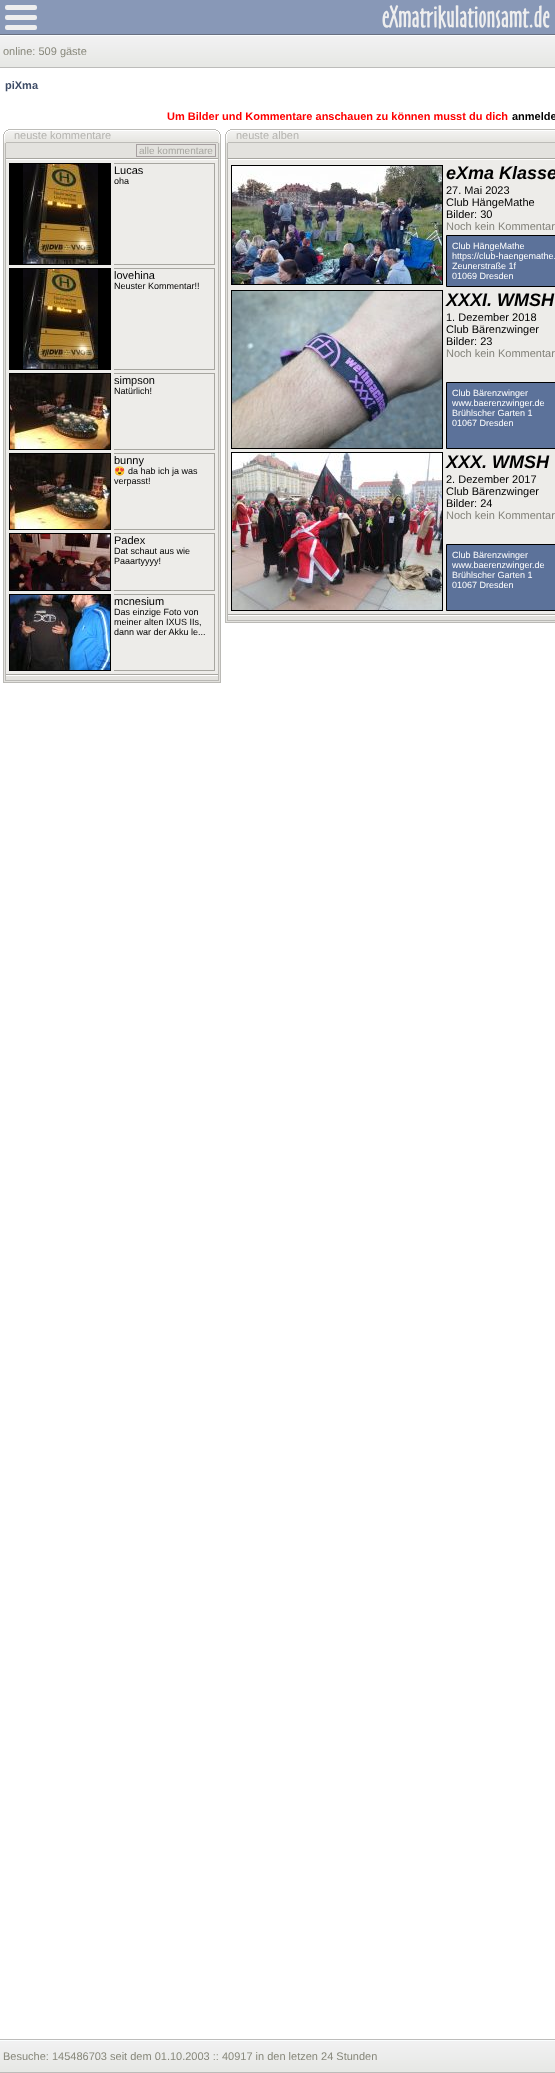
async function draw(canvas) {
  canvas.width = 555;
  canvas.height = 2073;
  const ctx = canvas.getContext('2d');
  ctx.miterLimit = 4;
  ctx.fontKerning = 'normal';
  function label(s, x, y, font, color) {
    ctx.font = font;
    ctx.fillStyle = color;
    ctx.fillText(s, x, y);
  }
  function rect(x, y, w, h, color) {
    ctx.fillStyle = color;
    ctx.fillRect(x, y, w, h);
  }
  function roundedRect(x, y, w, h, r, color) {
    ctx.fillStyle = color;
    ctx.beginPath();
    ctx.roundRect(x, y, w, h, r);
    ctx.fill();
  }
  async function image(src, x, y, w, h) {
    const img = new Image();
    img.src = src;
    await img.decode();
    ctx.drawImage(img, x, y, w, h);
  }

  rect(0, 0, 555, 2073, '#fff');
  rect(0, 0, 555, 34, '#8898b7');
  roundedRect(5, 5, 32, 5, 2, '#eee');
  await image('assets/img1.png', 382, 5, 168, 24);
  roundedRect(5, 15, 32, 5, 2, '#eee');
  roundedRect(5, 25, 32, 5, 2, '#eee');
  await image('assets/img2.png', 0, 34, 555, 34);
  label('online: 509 gäste', 3, 55, '11px Liberation Sans', '#88887b');
  label('piXma', 5, 89, 'bold 11px Liberation Sans', '#3f4d67');
  label('Um Bilder und Kommentare anschauen zu können musst du dich', 167, 120, 'bold 11px Liberation Sans', '#f00');
  label('anmelde', 512, 120, 'bold 11px Liberation Sans', '#000');
  await image('assets/img3.png', 8, 129, 208, 14);
  await image('assets/img4.png', 3, 129, 5, 14);
  label('neuste kommentare', 14, 139, '11px Liberation Sans', '#b4b3af');
  await image('assets/img5.png', 216, 129, 5, 14);
  rect(4, 143, 216, 539, '#e3e2de');
  rect(220, 143, 1, 540, '#bab9b5');
  rect(3, 682, 218, 1, '#bab9b5');
  rect(3, 143, 1, 540, '#bab9b5');
  rect(218, 143, 1, 538, '#bab9b5');
  rect(5, 680, 214, 1, '#bab9b5');
  rect(5, 143, 1, 538, '#bab9b5');
  rect(6, 158, 212, 1, '#a7a6a0');
  ctx.strokeStyle = '#a7a0a1';
  ctx.strokeRect(136.5, 144.5, 79, 12);
  label('alle kommentare', 139, 154, '10px Liberation Sans', '#a7a6a0');
  rect(6, 160, 212, 514, '#edece9');
  rect(6, 159, 212, 1, '#fff');
  rect(6, 674, 212, 1, '#a7a6a0');
  rect(9, 163, 102, 102, '#000');
  await image('assets/img6.png', 23, 164, 75, 100);
  rect(114, 163, 101, 1, '#a7a6a0');
  rect(214, 163, 1, 102, '#a7a6a0');
  rect(114, 264, 101, 1, '#a7a6a0');
  label('Lucas', 114, 174, '11px Liberation Sans', '#000');
  label('oha', 114, 184, '9px Liberation Sans', '#000');
  rect(9, 268, 102, 102, '#000');
  await image('assets/img6.png', 23, 269, 75, 100);
  rect(114, 268, 101, 1, '#a7a6a0');
  rect(214, 268, 1, 102, '#a7a6a0');
  rect(114, 369, 101, 1, '#a7a6a0');
  label('lovehina', 114, 279, '11px Liberation Sans', '#000');
  label('Neuster Kommentar!!', 114, 289, '9px Liberation Sans', '#000');
  rect(9, 373, 102, 77, '#000');
  await image('assets/img7.png', 10, 374, 100, 75);
  rect(114, 373, 101, 1, '#a7a6a0');
  rect(214, 373, 1, 77, '#a7a6a0');
  rect(114, 449, 101, 1, '#a7a6a0');
  label('simpson', 114, 384, '11px Liberation Sans', '#000');
  label('Natürlich!', 114, 394, '9px Liberation Sans', '#000');
  rect(9, 453, 102, 77, '#000');
  await image('assets/img7.png', 10, 454, 100, 75);
  rect(114, 453, 101, 1, '#a7a6a0');
  rect(214, 453, 1, 77, '#a7a6a0');
  rect(114, 529, 101, 1, '#a7a6a0');
  label('bunny', 114, 464, '11px Liberation Sans', '#000');
  label('😍', 114, 474, '9px Noto Color Emoji', '#000');
  label('da hab ich ja was', 128, 474, '9px Liberation Sans', '#000');
  label('verpasst!', 114, 484, '9px Liberation Sans', '#000');
  rect(9, 533, 102, 58, '#000');
  await image('assets/img8.png', 10, 534, 100, 56);
  rect(114, 533, 101, 1, '#a7a6a0');
  rect(214, 533, 1, 58, '#a7a6a0');
  rect(114, 590, 101, 1, '#a7a6a0');
  label('Padex', 114, 544, '11px Liberation Sans', '#000');
  label('Dat schaut aus wie', 114, 554, '9px Liberation Sans', '#000');
  label('Paaartyyyy!', 114, 564, '9px Liberation Sans', '#000');
  rect(9, 594, 102, 77, '#000');
  await image('assets/img9.png', 10, 595, 100, 75);
  rect(114, 594, 101, 1, '#a7a6a0');
  rect(214, 594, 1, 77, '#a7a6a0');
  rect(114, 670, 101, 1, '#a7a6a0');
  label('mcnesium', 114, 605, '11px Liberation Sans', '#000');
  label('Das einzige Foto von', 114, 615, '9px Liberation Sans', '#000');
  label('meiner alten IXUS IIs,', 114, 625, '9px Liberation Sans', '#000');
  label('dann war der Akku le...', 114, 635, '9px Liberation Sans', '#000');
  rect(6, 675, 212, 1, '#fff');
  await image('assets/img10.png', 230, 129, 325, 14);
  await image('assets/img4.png', 225, 129, 5, 14);
  label('neuste alben', 236, 139, '11px Liberation Sans', '#b4b3af');
  rect(226, 143, 329, 479, '#e3e2de');
  rect(225, 622, 330, 1, '#bab9b5');
  rect(225, 143, 1, 480, '#bab9b5');
  rect(227, 620, 328, 1, '#bab9b5');
  rect(227, 143, 1, 478, '#bab9b5');
  rect(228, 158, 327, 1, '#a7a6a0');
  rect(228, 160, 327, 454, '#edece9');
  rect(228, 159, 327, 1, '#fff');
  rect(228, 614, 327, 1, '#a7a6a0');
  rect(231, 165, 212, 120, '#000');
  await image('assets/img11.png', 232, 166, 210, 118);
  label('eXma Klasse', 446, 179, 'italic bold 18px Liberation Sans', '#000');
  label('27. Mai 2023', 446, 194, '11px Liberation Sans', '#000');
  label('Club HängeMathe', 446, 206, '11px Liberation Sans', '#000');
  label('Bilder: 30', 446, 218, '11px Liberation Sans', '#000');
  label('Noch kein Kommentar', 446, 230, '11px Liberation Sans', '#83827a');
  ctx.fillStyle = '#5c729a';
  ctx.beginPath();
  ctx.rect(446.5, 235.5, 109, 51);
  ctx.fill();
  ctx.strokeStyle = '#000';
  ctx.stroke();
  label('Club HängeMathe', 452, 249, '9px Liberation Sans', '#fff');
  label('https://club-haengemathe.', 452, 259, '9px Liberation Sans', '#fff');
  label('Zeunerstraße 1f', 452, 269, '9px Liberation Sans', '#fff');
  label('01069 Dresden', 452, 279, '9px Liberation Sans', '#fff');
  rect(231, 290, 212, 159, '#000');
  await image('assets/img12.png', 232, 291, 210, 157);
  label('XXXI. WMSH', 446, 306, 'italic bold 18px Liberation Sans', '#000');
  label('1. Dezember 2018', 446, 321, '11px Liberation Sans', '#000');
  label('Club Bärenzwinger', 446, 333, '11px Liberation Sans', '#000');
  label('Bilder: 23', 446, 345, '11px Liberation Sans', '#000');
  label('Noch kein Kommentar', 446, 357, '11px Liberation Sans', '#83827a');
  ctx.fillStyle = '#5c729a';
  ctx.beginPath();
  ctx.rect(446.5, 382.5, 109, 66);
  ctx.fill();
  ctx.stroke();
  label('Club Bärenzwinger', 452, 396, '9px Liberation Sans', '#fff');
  label('www.baerenzwinger.de', 452, 406, '9px Liberation Sans', '#fff');
  label('Brühlscher Garten 1', 452, 416, '9px Liberation Sans', '#fff');
  label('01067 Dresden', 452, 426, '9px Liberation Sans', '#fff');
  rect(231, 452, 212, 159, '#000');
  await image('assets/img13.png', 232, 453, 210, 157);
  label('XXX. WMSH', 446, 468, 'italic bold 18px Liberation Sans', '#000');
  label('2. Dezember 2017', 446, 483, '11px Liberation Sans', '#000');
  label('Club Bärenzwinger', 446, 495, '11px Liberation Sans', '#000');
  label('Bilder: 24', 446, 507, '11px Liberation Sans', '#000');
  label('Noch kein Kommentar', 446, 519, '11px Liberation Sans', '#83827a');
  ctx.fillStyle = '#5c729a';
  ctx.beginPath();
  ctx.rect(446.5, 544.5, 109, 66);
  ctx.fill();
  ctx.stroke();
  label('Club Bärenzwinger', 452, 558, '9px Liberation Sans', '#fff');
  label('www.baerenzwinger.de', 452, 568, '9px Liberation Sans', '#fff');
  label('Brühlscher Garten 1', 452, 578, '9px Liberation Sans', '#fff');
  label('01067 Dresden', 452, 588, '9px Liberation Sans', '#fff');
  rect(228, 615, 327, 1, '#fff');
  await image('assets/img14.png', 0, 2039, 555, 34);
  label('Besuche: 145486703 seit dem 01.10.2003 :: 40917 in den letzen 24 Stunden', 3, 2060, '11px Liberation Sans', '#88887b');
}

draw(document.querySelector('canvas'));
